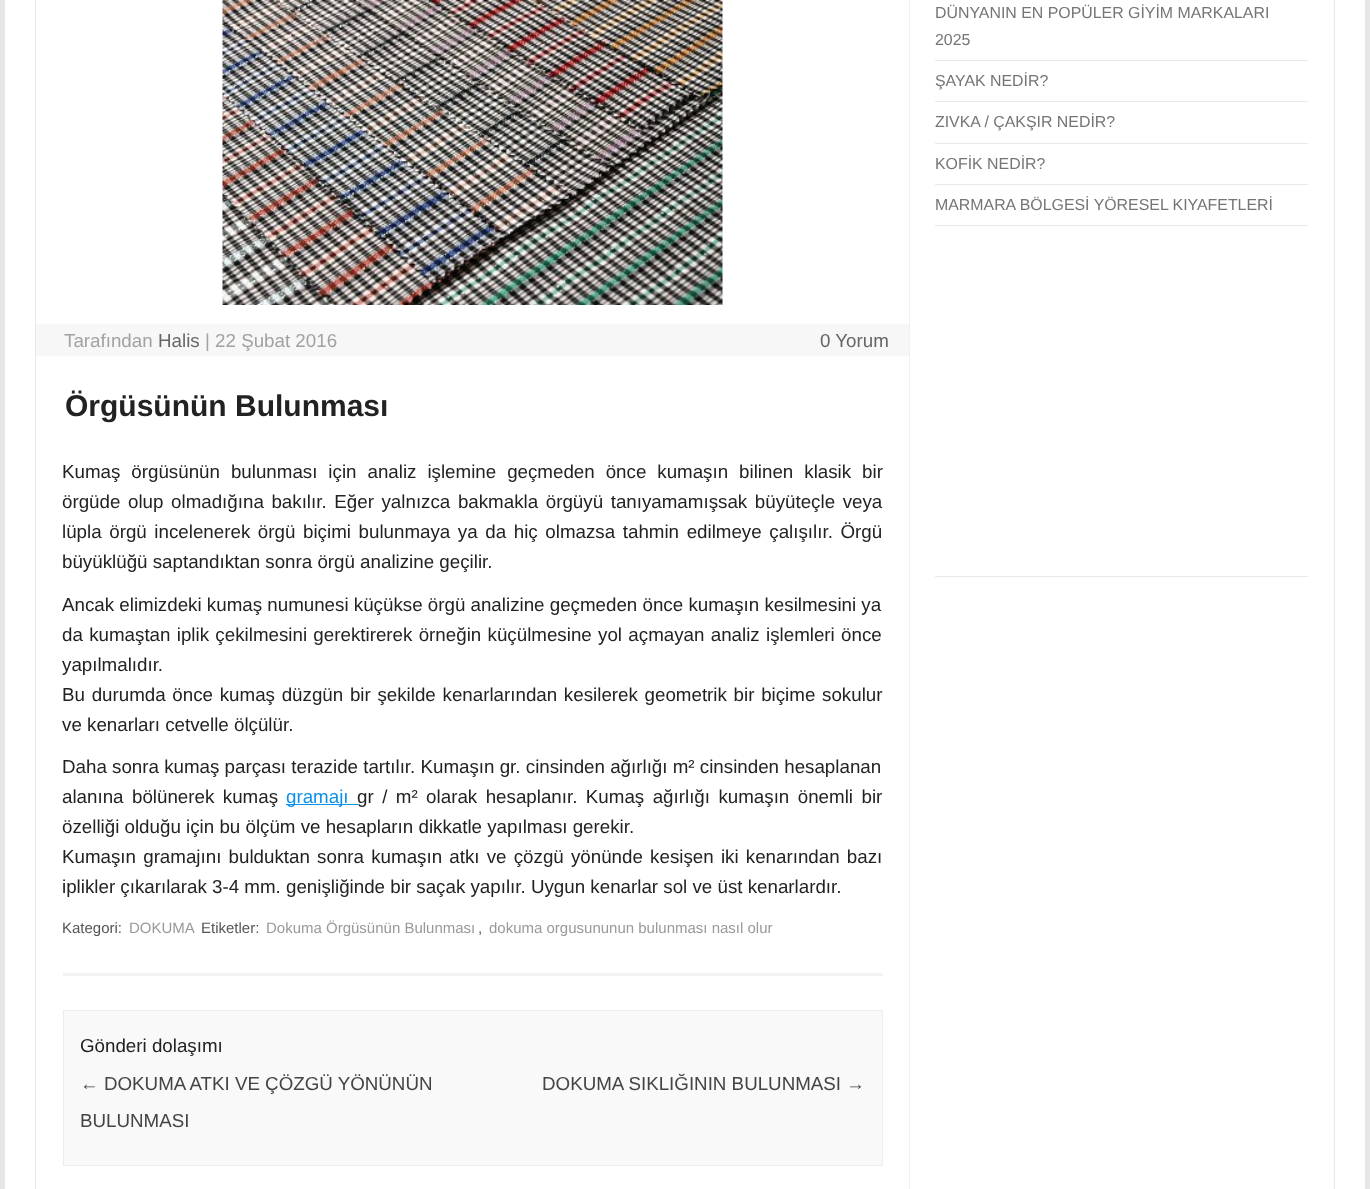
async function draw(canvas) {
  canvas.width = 1370;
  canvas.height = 1189;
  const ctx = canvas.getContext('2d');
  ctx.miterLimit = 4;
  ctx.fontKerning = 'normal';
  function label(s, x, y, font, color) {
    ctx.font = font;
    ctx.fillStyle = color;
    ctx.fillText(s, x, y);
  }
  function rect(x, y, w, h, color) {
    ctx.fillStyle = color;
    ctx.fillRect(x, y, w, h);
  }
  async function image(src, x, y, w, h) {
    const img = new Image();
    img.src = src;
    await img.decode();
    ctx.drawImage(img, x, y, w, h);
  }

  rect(0, 0, 1370, 1189, '#e6e6e6');
  rect(5, 0, 1360, 1189, '#fff');
  ctx.strokeStyle = '#e9e9e9';
  ctx.strokeRect(35.5, -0.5, 1299, 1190);
  rect(935, 60, 373, 1, '#e9e9e9');
  label('DÜNYANIN EN POPÜLER GİYİM MARKALARI', 935, 18, '15.9px Liberation Sans', '#757575');
  label('2025', 935, 45, '15.9px Liberation Sans', '#757575');
  rect(935, 101, 373, 1, '#e9e9e9');
  label('ŞAYAK NEDİR?', 935, 86, '15.9px Liberation Sans', '#757575');
  rect(935, 143, 373, 1, '#e9e9e9');
  label('ZIVKA / ÇAKŞIR NEDİR?', 935, 127, '15.9px Liberation Sans', '#757575');
  rect(935, 184, 373, 1, '#e9e9e9');
  label('KOFİK NEDİR?', 935, 169, '15.9px Liberation Sans', '#757575');
  rect(935, 225, 373, 1, '#e9e9e9');
  label('MARMARA BÖLGESİ YÖRESEL KIYAFETLERİ', 935, 210, '15.9px Liberation Sans', '#757575');
  rect(935, 576, 373, 1, '#e9e9e9');
  rect(909, 0, 1, 1189, '#f1f1f1');
  rect(63, 973, 820, 3, '#f3f3f3');
  await image('assets/img1.png', 222, 0, 501, 305);
  rect(36, 324, 873, 32, '#f7f7f7');
  label('Tarafından', 64, 347, '18.75px Liberation Sans', '#a2a2a2');
  label('Halis', 158, 347, '18.75px Liberation Sans', '#666');
  label('| 22 Şubat 2016', 205, 347, '18.75px Liberation Sans', '#a2a2a2');
  label('0 Yorum', 820, 347, '18.75px Liberation Sans', '#666');
  label('Örgüsünün Bulunması', 65, 416, 'bold 30px Liberation Sans', '#222');
  ctx.wordSpacing = '5.75px';
  label('Kumaş örgüsünün bulunması için analiz işlemine geçmeden önce kumaşın bilinen klasik bir', 62, 478, '18.75px Liberation Sans', '#222');
  ctx.wordSpacing = '2.4px';
  label('örgüde olup olmadığına bakılır. Eğer yalnızca bakmakla örgüyü tanıyamamışsak büyüteçle veya', 62, 508, '18.75px Liberation Sans', '#222');
  label('lüpla örgü incelenerek örgü biçimi bulunmaya ya da hiç olmazsa tahmin edilmeye çalışılır. Örgü', 62, 538, '18.75px Liberation Sans', '#222');
  ctx.wordSpacing = '0px';
  label('büyüklüğü saptandıktan sonra örgü analizine geçilir.', 62, 568, '18.75px Liberation Sans', '#222');
  label('Ancak elimizdeki kumaş numunesi küçükse örgü analizine geçmeden önce kumaşın kesilmesini ya', 62, 611, '18.75px Liberation Sans', '#222');
  ctx.wordSpacing = '1.1px';
  label('da kumaştan iplik çekilmesini gerektirerek örneğin küçülmesine yol açmayan analiz işlemleri önce', 62, 641, '18.75px Liberation Sans', '#222');
  ctx.wordSpacing = '0px';
  label('yapılmalıdır.', 62, 671, '18.75px Liberation Sans', '#222');
  ctx.wordSpacing = '1.5px';
  label('Bu durumda önce kumaş düzgün bir şekilde kenarlarından kesilerek geometrik bir biçime sokulur', 62, 701, '18.75px Liberation Sans', '#222');
  ctx.wordSpacing = '0px';
  label('ve kenarları cetvelle ölçülür.', 62, 731, '18.75px Liberation Sans', '#222');
  label('Daha sonra kumaş parçası terazide tartılır. Kumaşın gr. cinsinden ağırlığı m² cinsinden hesaplanan', 62, 773, '18.75px Liberation Sans', '#222');
  ctx.wordSpacing = '3.25px';
  label('alanına bölünerek kumaş', 62, 803, '18.75px Liberation Sans', '#222');
  rect(286, 804, 72, 1, '#0b91ea');
  ctx.wordSpacing = '0px';
  label('gramajı', 286, 803, '18.75px Liberation Sans', '#0b91ea');
  ctx.wordSpacing = '3.25px';
  label('gr / m² olarak hesaplanır. Kumaş ağırlığı kumaşın önemli bir', 357, 803, '18.75px Liberation Sans', '#222');
  ctx.wordSpacing = '0px';
  label('özelliği olduğu için bu ölçüm ve hesapların dikkatle yapılması gerekir.', 62, 833, '18.75px Liberation Sans', '#222');
  ctx.wordSpacing = '2px';
  label('Kumaşın gramajını bulduktan sonra kumaşın atkı ve çözgü yönünde kesişen iki kenarından bazı', 62, 863, '18.75px Liberation Sans', '#222');
  ctx.wordSpacing = '0px';
  label('iplikler çıkarılarak 3-4 mm. genişliğinde bir saçak yapılır. Uygun kenarlar sol ve üst kenarlardır.', 62, 893, '18.75px Liberation Sans', '#222');
  label('Kategori:', 62, 933, '15px Liberation Sans', '#555');
  label('DOKUMA', 129, 933, '15px Liberation Sans', '#999');
  label('Etiketler:', 201, 933, '15px Liberation Sans', '#555');
  label('Dokuma Örgüsünün Bulunması', 266, 933, '15px Liberation Sans', '#999');
  label(',', 478, 933, '15px Liberation Sans', '#555');
  label('dokuma orgusununun bulunması nasıl olur', 489, 933, '15px Liberation Sans', '#999');
  ctx.fillStyle = '#f9f9f9';
  ctx.beginPath();
  ctx.rect(63.5, 1010.5, 819, 155);
  ctx.fill();
  ctx.strokeStyle = '#ededed';
  ctx.stroke();
  label('Gönderi dolaşımı', 80, 1052, '18.75px Liberation Sans', '#222');
  label('← DOKUMA ATKI VE ÇÖZGÜ YÖNÜNÜN', 80, 1090, '18.75px Liberation Sans', '#444');
  label('BULUNMASI', 80, 1127, '18.75px Liberation Sans', '#444');
  label('DOKUMA SIKLIĞININ BULUNMASI →', 542, 1090, '18.75px Liberation Sans', '#444');
}

draw(document.querySelector('canvas'));
